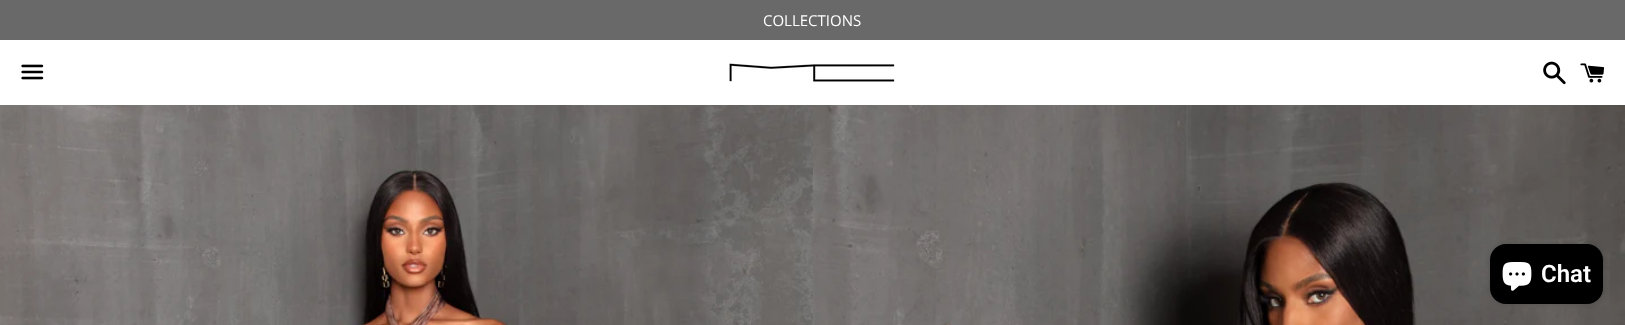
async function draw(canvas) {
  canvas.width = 1625;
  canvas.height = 325;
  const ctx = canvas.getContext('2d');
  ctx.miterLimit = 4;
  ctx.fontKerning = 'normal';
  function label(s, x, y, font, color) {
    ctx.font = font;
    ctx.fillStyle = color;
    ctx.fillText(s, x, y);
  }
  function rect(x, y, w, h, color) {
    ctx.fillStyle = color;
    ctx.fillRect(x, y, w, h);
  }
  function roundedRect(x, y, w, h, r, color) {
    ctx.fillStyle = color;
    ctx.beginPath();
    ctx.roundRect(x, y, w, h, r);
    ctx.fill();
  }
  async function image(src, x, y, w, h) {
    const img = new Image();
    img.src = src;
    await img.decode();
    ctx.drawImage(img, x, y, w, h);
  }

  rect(0, 0, 1625, 325, '#fff');
  rect(0, 0, 1625, 40, '#696969');
  label('COLLECTIONS', 763, 26, '15px Open Sans', '#fff');
  await image('assets/img1.png', 21, 64, 23, 16);
  await image('assets/img2.png', 729, 63, 166, 19);
  await image('assets/img3.png', 1543, 61, 23, 24);
  await image('assets/img4.png', 1580, 63, 25, 20);
  await image('assets/img5.png', 0, 105, 813, 220);
  await image('assets/img6.png', 813, 105, 812, 220);
  ctx.fillStyle = '#00000026';
  ctx.filter = 'blur(2.5px)';
  ctx.beginPath();
  ctx.roundRect(1490, 244, 113, 60, 16);
  ctx.fill();
  ctx.filter = 'none';
  roundedRect(1490, 244, 113, 60, 16, '#000');
  await image('assets/img7.png', 1502, 262, 30, 29);
  label('Chat', 1541, 282, '600 24px Roboto', '#fff');
}

draw(document.querySelector('canvas'));
